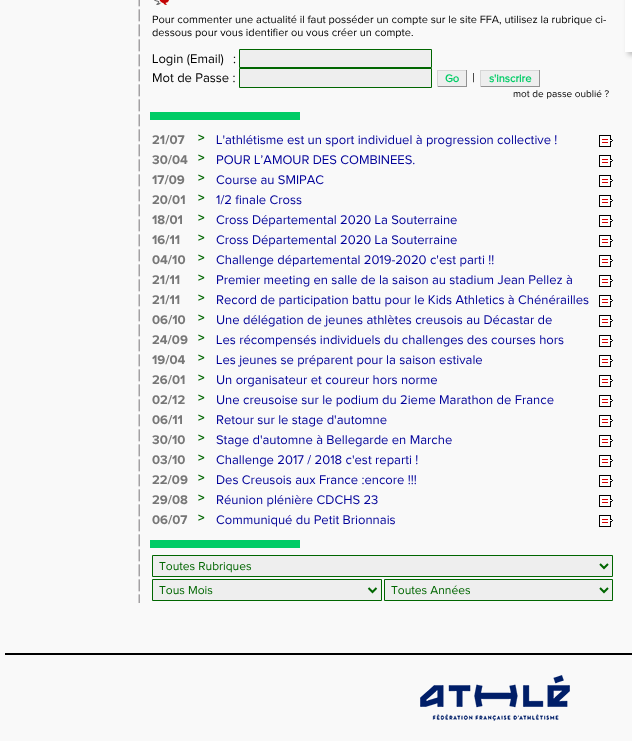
async function draw(canvas) {
  canvas.width = 632;
  canvas.height = 741;
  const ctx = canvas.getContext('2d');
  ctx.miterLimit = 4;
  ctx.fontKerning = 'normal';
  function label(s, x, y, font, color) {
    ctx.font = font;
    ctx.fillStyle = color;
    ctx.fillText(s, x, y);
  }
  function rect(x, y, w, h, color) {
    ctx.fillStyle = color;
    ctx.fillRect(x, y, w, h);
  }
  async function image(src, x, y, w, h) {
    const img = new Image();
    img.src = src;
    await img.decode();
    ctx.drawImage(img, x, y, w, h);
  }
  let path;

  rect(0, 0, 632, 741, '#f9f9f9');
  await image('assets/img1.png', 138, 0, 2, 603);
  await image('assets/img2.png', 154, 0, 15, 5);
  label('Pour commenter une actualité il faut posséder un compte sur le site FFA, utilisez la rubrique ci-', 152, 23, '11px Proxima Nova', '#000');
  label('dessous pour vous identifier ou vous créer un compte.', 152, 36, '11px Proxima Nova', '#000');
  label('Login (Email)', 152, 63, '13px Proxima Nova', '#000');
  label(':', 233, 63, '13px Proxima Nova', '#000');
  ctx.fillStyle = '#eee';
  ctx.beginPath();
  ctx.rect(239.5, 49.5, 192, 18);
  ctx.fill();
  ctx.strokeStyle = '#060';
  ctx.stroke();
  label('Mot de Passe :', 152, 82, '13px Proxima Nova', '#000');
  ctx.fillStyle = '#eee';
  ctx.beginPath();
  ctx.rect(239.5, 68.5, 192, 19);
  ctx.fill();
  ctx.stroke();
  rect(438, 71, 28, 15, '#eee');
  rect(437, 70, 30, 1, '#d6d6d6');
  rect(466, 70, 1, 17, '#929292');
  rect(437, 86, 30, 1, '#929292');
  rect(437, 70, 1, 17, '#d6d6d6');
  label('Go', 445, 82, 'bold 11px "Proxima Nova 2"', '#0c6');
  label('|', 472, 82, '13px Proxima Nova', '#000');
  rect(481, 71, 58, 15, '#eee');
  rect(480, 70, 60, 1, '#d6d6d6');
  rect(539, 70, 1, 17, '#929292');
  rect(480, 86, 60, 1, '#929292');
  rect(480, 70, 1, 17, '#d6d6d6');
  label('s\'inscrire', 489, 82, 'bold 11px "Proxima Nova 2"', '#0c6');
  label('mot de passe oublié ?', 513, 97, '10px Proxima Nova', '#000');
  rect(150, 112, 150, 8, '#0c6');
  label('21/07', 152, 144, 'bold 13px Proxima Nova', '#777');
  label('>', 198, 142, 'bold 13px Proxima Nova', '#060');
  label('L\'athlétisme est un sport individuel à progression collective !', 216, 144, '13px Proxima Nova', '#009');
  await image('assets/img3.png', 599, 135, 14, 12);
  label('30/04', 152, 164, 'bold 13px Proxima Nova', '#777');
  label('>', 198, 162, 'bold 13px Proxima Nova', '#060');
  label('POUR L’AMOUR DES COMBINEES.', 216, 164, '13px Proxima Nova', '#009');
  await image('assets/img3.png', 599, 155, 14, 12);
  label('17/09', 152, 184, 'bold 13px Proxima Nova', '#777');
  label('>', 198, 182, 'bold 13px Proxima Nova', '#060');
  label('Course au SMIPAC', 216, 184, '13px Proxima Nova', '#009');
  await image('assets/img3.png', 599, 175, 14, 12);
  label('20/01', 152, 204, 'bold 13px Proxima Nova', '#777');
  label('>', 198, 202, 'bold 13px Proxima Nova', '#060');
  label('1/2 finale Cross', 216, 204, '13px Proxima Nova', '#009');
  await image('assets/img3.png', 599, 195, 14, 12);
  label('18/01', 152, 224, 'bold 13px Proxima Nova', '#777');
  label('>', 198, 222, 'bold 13px Proxima Nova', '#060');
  label('Cross Départemental 2020 La Souterraine', 216, 224, '13px Proxima Nova', '#009');
  await image('assets/img3.png', 599, 215, 14, 12);
  label('16/11', 152, 244, 'bold 13px Proxima Nova', '#777');
  label('>', 198, 242, 'bold 13px Proxima Nova', '#060');
  label('Cross Départemental 2020 La Souterraine', 216, 244, '13px Proxima Nova', '#009');
  await image('assets/img3.png', 599, 235, 14, 12);
  label('04/10', 152, 264, 'bold 13px Proxima Nova', '#777');
  label('>', 198, 262, 'bold 13px Proxima Nova', '#060');
  label('Challenge départemental 2019-2020 c\'est parti !!', 216, 264, '13px Proxima Nova', '#009');
  await image('assets/img3.png', 599, 255, 14, 12);
  label('21/11', 152, 284, 'bold 13px Proxima Nova', '#777');
  label('>', 198, 282, 'bold 13px Proxima Nova', '#060');
  label('Premier meeting en salle de la saison au stadium Jean Pellez à', 216, 284, '13px Proxima Nova', '#009');
  await image('assets/img3.png', 599, 275, 14, 12);
  label('21/11', 152, 304, 'bold 13px Proxima Nova', '#777');
  label('>', 198, 302, 'bold 13px Proxima Nova', '#060');
  label('Record de participation battu pour le Kids Athletics à Chénérailles', 216, 304, '13px Proxima Nova', '#009');
  await image('assets/img3.png', 599, 295, 14, 12);
  label('06/10', 152, 324, 'bold 13px Proxima Nova', '#777');
  label('>', 198, 322, 'bold 13px Proxima Nova', '#060');
  label('Une délégation de jeunes athlètes creusois au Décastar de', 216, 324, '13px Proxima Nova', '#009');
  await image('assets/img3.png', 599, 315, 14, 12);
  label('24/09', 152, 344, 'bold 13px Proxima Nova', '#777');
  label('>', 198, 342, 'bold 13px Proxima Nova', '#060');
  label('Les récompensés individuels du challenges des courses hors', 216, 344, '13px Proxima Nova', '#009');
  await image('assets/img3.png', 599, 335, 14, 12);
  label('19/04', 152, 364, 'bold 13px Proxima Nova', '#777');
  label('>', 198, 362, 'bold 13px Proxima Nova', '#060');
  label('Les jeunes se préparent pour la saison estivale', 216, 364, '13px Proxima Nova', '#009');
  await image('assets/img3.png', 599, 355, 14, 12);
  label('26/01', 152, 384, 'bold 13px Proxima Nova', '#777');
  label('>', 198, 382, 'bold 13px Proxima Nova', '#060');
  label('Un organisateur et coureur hors norme', 216, 384, '13px Proxima Nova', '#009');
  await image('assets/img3.png', 599, 375, 14, 12);
  label('02/12', 152, 404, 'bold 13px Proxima Nova', '#777');
  label('>', 198, 402, 'bold 13px Proxima Nova', '#060');
  label('Une creusoise sur le podium du 2ieme Marathon de France', 216, 404, '13px Proxima Nova', '#009');
  await image('assets/img3.png', 599, 395, 14, 12);
  label('06/11', 152, 424, 'bold 13px Proxima Nova', '#777');
  label('>', 198, 422, 'bold 13px Proxima Nova', '#060');
  label('Retour sur le stage d\'automne', 216, 424, '13px Proxima Nova', '#009');
  await image('assets/img3.png', 599, 415, 14, 12);
  label('30/10', 152, 444, 'bold 13px Proxima Nova', '#777');
  label('>', 198, 442, 'bold 13px Proxima Nova', '#060');
  label('Stage d\'automne à Bellegarde en Marche', 216, 444, '13px Proxima Nova', '#009');
  await image('assets/img3.png', 599, 435, 14, 12);
  label('03/10', 152, 464, 'bold 13px Proxima Nova', '#777');
  label('>', 198, 462, 'bold 13px Proxima Nova', '#060');
  label('Challenge 2017 / 2018 c\'est reparti !', 216, 464, '13px Proxima Nova', '#009');
  await image('assets/img3.png', 599, 455, 14, 12);
  label('22/09', 152, 484, 'bold 13px Proxima Nova', '#777');
  label('>', 198, 482, 'bold 13px Proxima Nova', '#060');
  label('Des Creusois aux France :encore !!!', 216, 484, '13px Proxima Nova', '#009');
  await image('assets/img3.png', 599, 475, 14, 12);
  label('29/08', 152, 504, 'bold 13px Proxima Nova', '#777');
  label('>', 198, 502, 'bold 13px Proxima Nova', '#060');
  label('Réunion plénière CDCHS 23', 216, 504, '13px Proxima Nova', '#009');
  await image('assets/img3.png', 599, 495, 14, 12);
  label('06/07', 152, 524, 'bold 13px Proxima Nova', '#777');
  label('>', 198, 522, 'bold 13px Proxima Nova', '#060');
  label('Communiqué du Petit Brionnais', 216, 524, '13px Proxima Nova', '#009');
  await image('assets/img3.png', 599, 515, 14, 12);
  rect(150, 540, 150, 8, '#0c6');
  ctx.fillStyle = '#eee';
  ctx.beginPath();
  ctx.rect(152.5, 555.5, 460, 21);
  ctx.fill();
  ctx.stroke();
  path = new Path2D('M600 564L604 568L608 564');
  ctx.lineWidth = 2;
  ctx.stroke(path);
  label('Toutes Rubriques', 159, 570, '12px Proxima Nova', '#060');
  ctx.fillStyle = '#eee';
  ctx.beginPath();
  ctx.rect(152.5, 579.5, 229, 21);
  ctx.fill();
  ctx.lineWidth = 1;
  ctx.stroke();
  path = new Path2D('M368.5 588L372.5 592L376.5 588');
  ctx.lineWidth = 2;
  ctx.stroke(path);
  label('Tous Mois', 159, 594, '12px Proxima Nova', '#060');
  ctx.fillStyle = '#eee';
  ctx.beginPath();
  ctx.rect(384.5, 579.5, 228, 21);
  ctx.fill();
  ctx.lineWidth = 1;
  ctx.stroke();
  path = new Path2D('M600 588L604 592L608 588');
  ctx.lineWidth = 2;
  ctx.stroke(path);
  label('Toutes Années', 391, 594, '12px Proxima Nova', '#060');
  ctx.fillStyle = '#00000040';
  ctx.filter = 'blur(2.5px)';
  ctx.beginPath();
  ctx.rect(628, -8, 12, 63);
  ctx.fill();
  ctx.filter = 'none';
  rect(625, 0, 7, 52, '#fff');
  rect(5, 653, 627, 2, '#000');
  await image('assets/img4.png', 420, 675, 150, 46);
}

draw(document.querySelector('canvas'));
